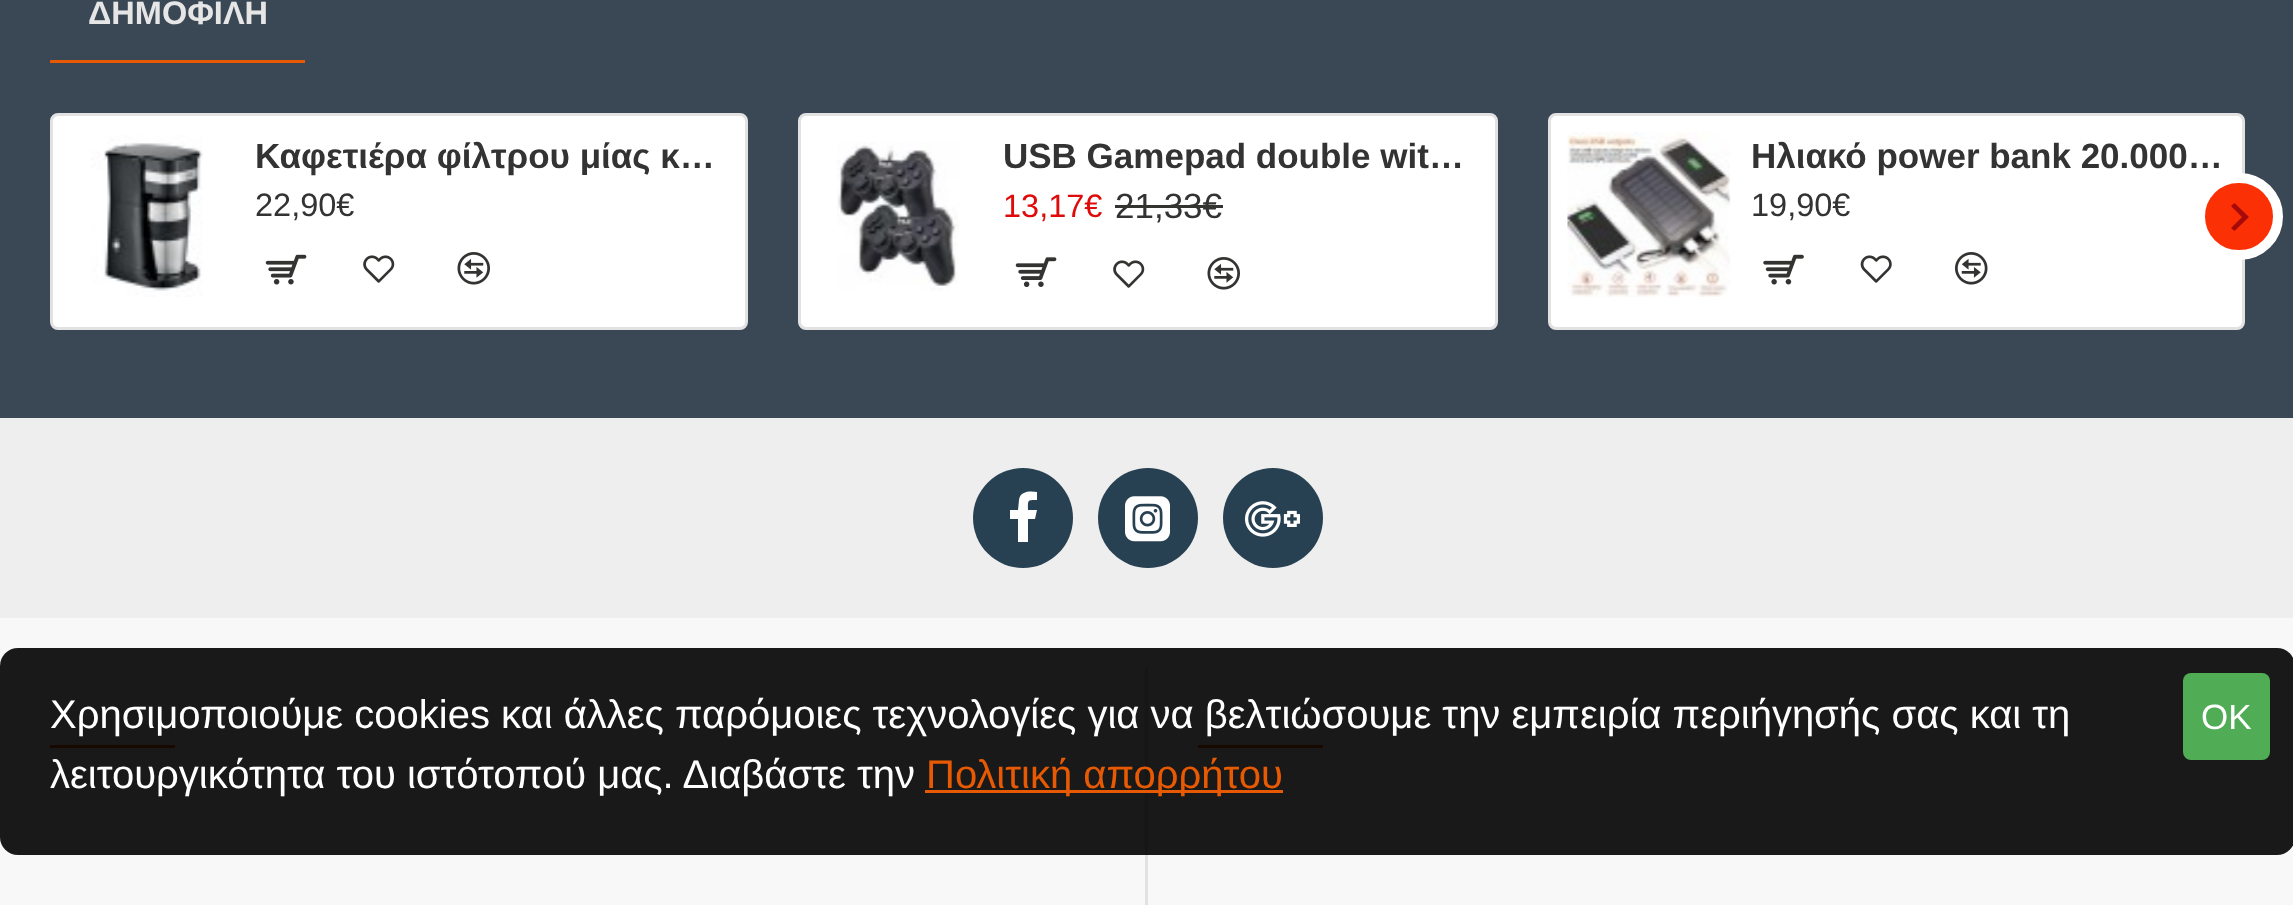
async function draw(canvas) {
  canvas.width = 2293;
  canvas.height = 905;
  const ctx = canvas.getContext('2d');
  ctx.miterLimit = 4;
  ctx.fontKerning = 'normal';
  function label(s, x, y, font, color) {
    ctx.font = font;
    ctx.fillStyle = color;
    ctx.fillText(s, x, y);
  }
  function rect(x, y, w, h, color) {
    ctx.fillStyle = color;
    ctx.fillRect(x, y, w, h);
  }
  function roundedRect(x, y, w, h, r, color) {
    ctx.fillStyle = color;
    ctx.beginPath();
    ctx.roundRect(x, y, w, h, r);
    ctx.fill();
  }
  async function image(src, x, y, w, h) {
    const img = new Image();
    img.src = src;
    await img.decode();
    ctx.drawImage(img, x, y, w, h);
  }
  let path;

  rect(0, 0, 2293, 905, '#f8f8f8');
  rect(0, 0, 2293, 418, '#3a4754');
  rect(50, 60, 255, 3, '#e75a03');
  label('ΔΗΜΟΦΙΛΗ', 88, 24, 'bold 32.5px Liberation Sans', '#e6e6e6');
  ctx.fillStyle = '#fff';
  ctx.beginPath();
  ctx.roundRect(51.5, 114.5, 695, 214, 6.5);
  ctx.fill();
  ctx.strokeStyle = '#e2e2e2';
  ctx.lineWidth = 3;
  ctx.stroke();
  await image('assets/img1.png', 91, 135, 112, 162);
  label('Καφετιέρα φίλτρου μίας κ…', 255, 168, 'bold 35px Liberation Sans', '#333');
  label('22,90€', 255, 216, '32.5px Liberation Sans', '#333');
  await image('assets/img2.png', 265, 254, 42, 31);
  await image('assets/img3.png', 363, 255, 32, 28);
  await image('assets/img4.png', 457, 252, 33, 33);
  ctx.fillStyle = '#fff';
  ctx.beginPath();
  ctx.roundRect(799.5, 114.5, 697, 214, 6.5);
  ctx.fill();
  ctx.stroke();
  await image('assets/img5.png', 837, 142, 122, 149);
  label('USB Gamepad double wit…', 1003, 168, 'bold 35px Liberation Sans', '#333');
  label('13,17€', 1003, 217, '32.5px Liberation Sans', '#df0b0b');
  label('21,33€', 1115, 218, '35px Liberation Sans', '#333');
  rect(1115, 205, 108, 3, '#333331');
  await image('assets/img6.png', 1015, 257, 42, 30);
  await image('assets/img3.png', 1113, 260, 32, 28);
  await image('assets/img4.png', 1207, 257, 33, 33);
  ctx.fillStyle = '#fff';
  ctx.beginPath();
  ctx.roundRect(1549.5, 114.5, 694, 214, 6.5);
  ctx.fill();
  ctx.stroke();
  await image('assets/img7.png', 1567, 132, 164, 165);
  label('Ηλιακό power bank 20.000…', 1751, 168, 'bold 35px Liberation Sans', '#333');
  label('19,90€', 1751, 216, '32.5px Liberation Sans', '#333');
  await image('assets/img8.png', 1763, 254, 41, 31);
  await image('assets/img9.png', 1860, 255, 32, 28);
  await image('assets/img10.png', 1955, 252, 33, 33);
  ctx.fillStyle = '#fc3005';
  ctx.beginPath();
  ctx.roundRect(2200, 178, 78, 77, 38.5);
  ctx.fill();
  ctx.strokeStyle = '#fff';
  ctx.lineWidth = 10;
  ctx.stroke();
  ctx.fillStyle = '#a60a0a';
  path = new Path2D('M2234.5 203L2249 217L2234.5 231L2231 228L2242 217L2231 206Z');
  ctx.fill(path);
  rect(0, 418, 2293, 200, '#eee');
  ctx.fillStyle = '#284152';
  ctx.beginPath();
  ctx.arc(1023, 518, 50, 0, 2 * Math.PI);
  ctx.fill();
  ctx.fillStyle = '#fff';
  path = new Path2D('M1037 492V500C1027 500 1028 500 1028 510H1037L1035 519H1028V542H1018V519H1010V510H1018L1019 500C1020 491 1030 491 1037 492Z');
  ctx.fill(path);
  ctx.fillStyle = '#284152';
  ctx.beginPath();
  ctx.arc(1148, 518, 50, 0, 2 * Math.PI);
  ctx.fill();
  await image('assets/img11.png', 1125, 496, 45, 46);
  ctx.beginPath();
  ctx.arc(1273, 518, 50, 0, 2 * Math.PI);
  ctx.fill();
  await image('assets/img12.png', 1245, 501, 55, 36);
  rect(1145, 668, 3, 237, '#e2e2e2');
  rect(50, 745, 125, 3, '#e75a03');
  rect(1198, 745, 125, 3, '#e75a03');
  roundedRect(0, 648, 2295, 207, 18, '#000000e6');
  label('Χρησιμοποιούμε cookies και άλλες παρόμοιες τεχνολογίες για να βελτιώσουμε την εμπειρία περιήγησής σας και τη', 50, 728, '40px Liberation Sans', '#fff');
  label('λειτουργικότητα του ιστότοπού μας. Διαβάστε την', 50, 788, '40px Liberation Sans', '#fff');
  rect(925, 790, 358, 3, '#e75a03');
  label('Πολιτική απορρήτου', 926, 788, '40px Liberation Sans', '#e75a03');
  roundedRect(2183, 673, 87, 87, 8, '#50ad55');
  label('OK', 2201, 729, '35px Liberation Sans', '#fff');
}

draw(document.querySelector('canvas'));
